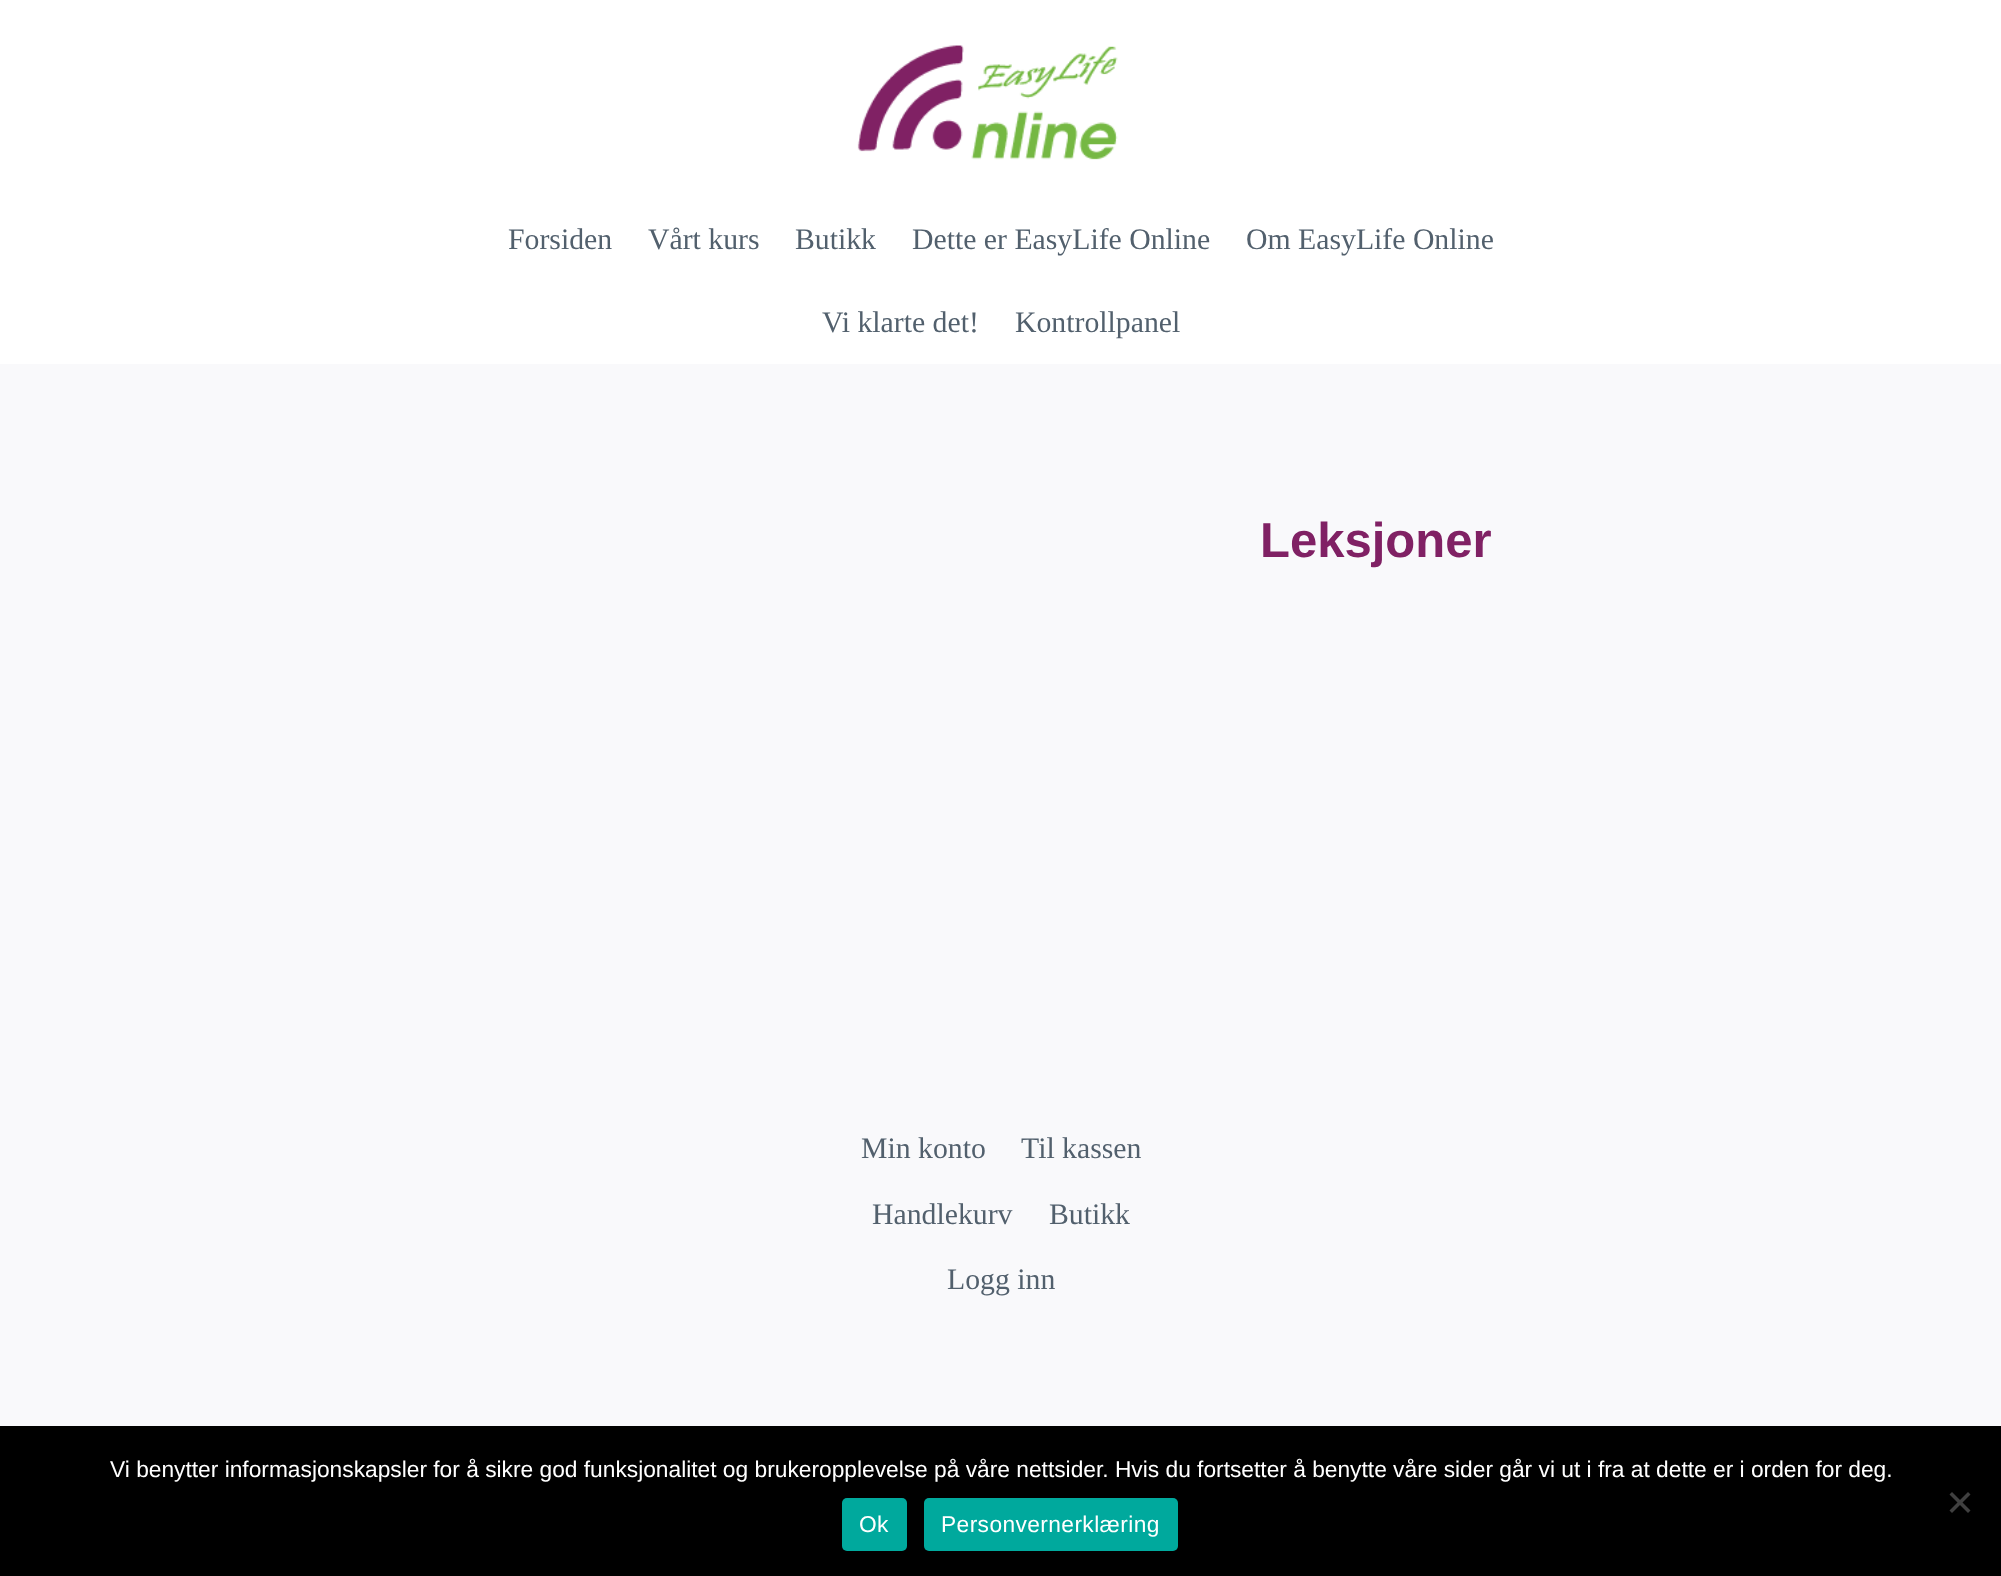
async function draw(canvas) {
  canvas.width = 2001;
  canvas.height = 1576;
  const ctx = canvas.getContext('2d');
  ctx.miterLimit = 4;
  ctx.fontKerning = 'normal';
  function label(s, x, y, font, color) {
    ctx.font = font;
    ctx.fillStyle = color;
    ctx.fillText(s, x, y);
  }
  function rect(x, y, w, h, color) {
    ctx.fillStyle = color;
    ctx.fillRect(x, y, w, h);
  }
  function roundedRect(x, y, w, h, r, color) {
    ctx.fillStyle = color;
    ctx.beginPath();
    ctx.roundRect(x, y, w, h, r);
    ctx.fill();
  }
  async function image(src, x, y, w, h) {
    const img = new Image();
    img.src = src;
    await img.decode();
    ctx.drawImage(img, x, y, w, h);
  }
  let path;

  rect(0, 0, 2001, 1576, '#f9f9fb');
  rect(0, 0, 2001, 364, '#fff');
  await image('assets/img1.png', 857, 45, 261, 115);
  label('Forsiden', 508, 249, '29.75px Liberation Serif', '#52606d');
  label('Vårt kurs', 648, 249, '29.75px Liberation Serif', '#52606d');
  label('Butikk', 795, 249, '29.75px Liberation Serif', '#52606d');
  label('Dette er EasyLife Online', 912, 249, '29.75px Liberation Serif', '#52606d');
  label('Om EasyLife Online', 1246, 249, '29.75px Liberation Serif', '#52606d');
  label('Vi klarte det!', 822, 332, '29.75px Liberation Serif', '#52606d');
  label('Kontrollpanel', 1015, 332, '29.75px Liberation Serif', '#52606d');
  label('Leksjoner', 1260, 557, 'bold 49px Liberation Sans', '#802164');
  label('Min konto', 861, 1158, '29.75px Liberation Serif', '#52606d');
  label('Til kassen', 1021, 1158, '29.75px Liberation Serif', '#52606d');
  label('Handlekurv', 872, 1224, '29.75px Liberation Serif', '#52606d');
  label('Butikk', 1049, 1224, '29.75px Liberation Serif', '#52606d');
  label('Logg inn', 947, 1289, '29.75px Liberation Serif', '#52606d');
  rect(0, 1426, 2001, 150, '#000');
  label('Vi benytter informasjonskapsler for å sikre god funksjonalitet og brukeropplevelse på våre nettsider. Hvis du fortsetter å benytte våre sider går vi ut i fra at dette er i orden for deg.', 110, 1477, '22.75px Liberation Sans', '#fff');
  ctx.fillStyle = '#404040';
  path = new Path2D('M1968 1492L1970.5 1494.5L1952 1513L1949.5 1510.5Z');
  ctx.fill(path);
  path = new Path2D('M1949.5 1494.5L1952 1492L1970.5 1510.5L1968 1513Z');
  ctx.fill(path);
  roundedRect(842, 1498, 65, 53, 5, '#00a99d');
  ctx.letterSpacing = '0.4px';
  label('Ok', 859, 1532, '22.75px Liberation Sans', '#fff');
  roundedRect(924, 1498, 254, 53, 5, '#00a99d');
  label('Personvernerklæring', 941, 1532, '22.75px Liberation Sans', '#fff');
}

draw(document.querySelector('canvas'));
